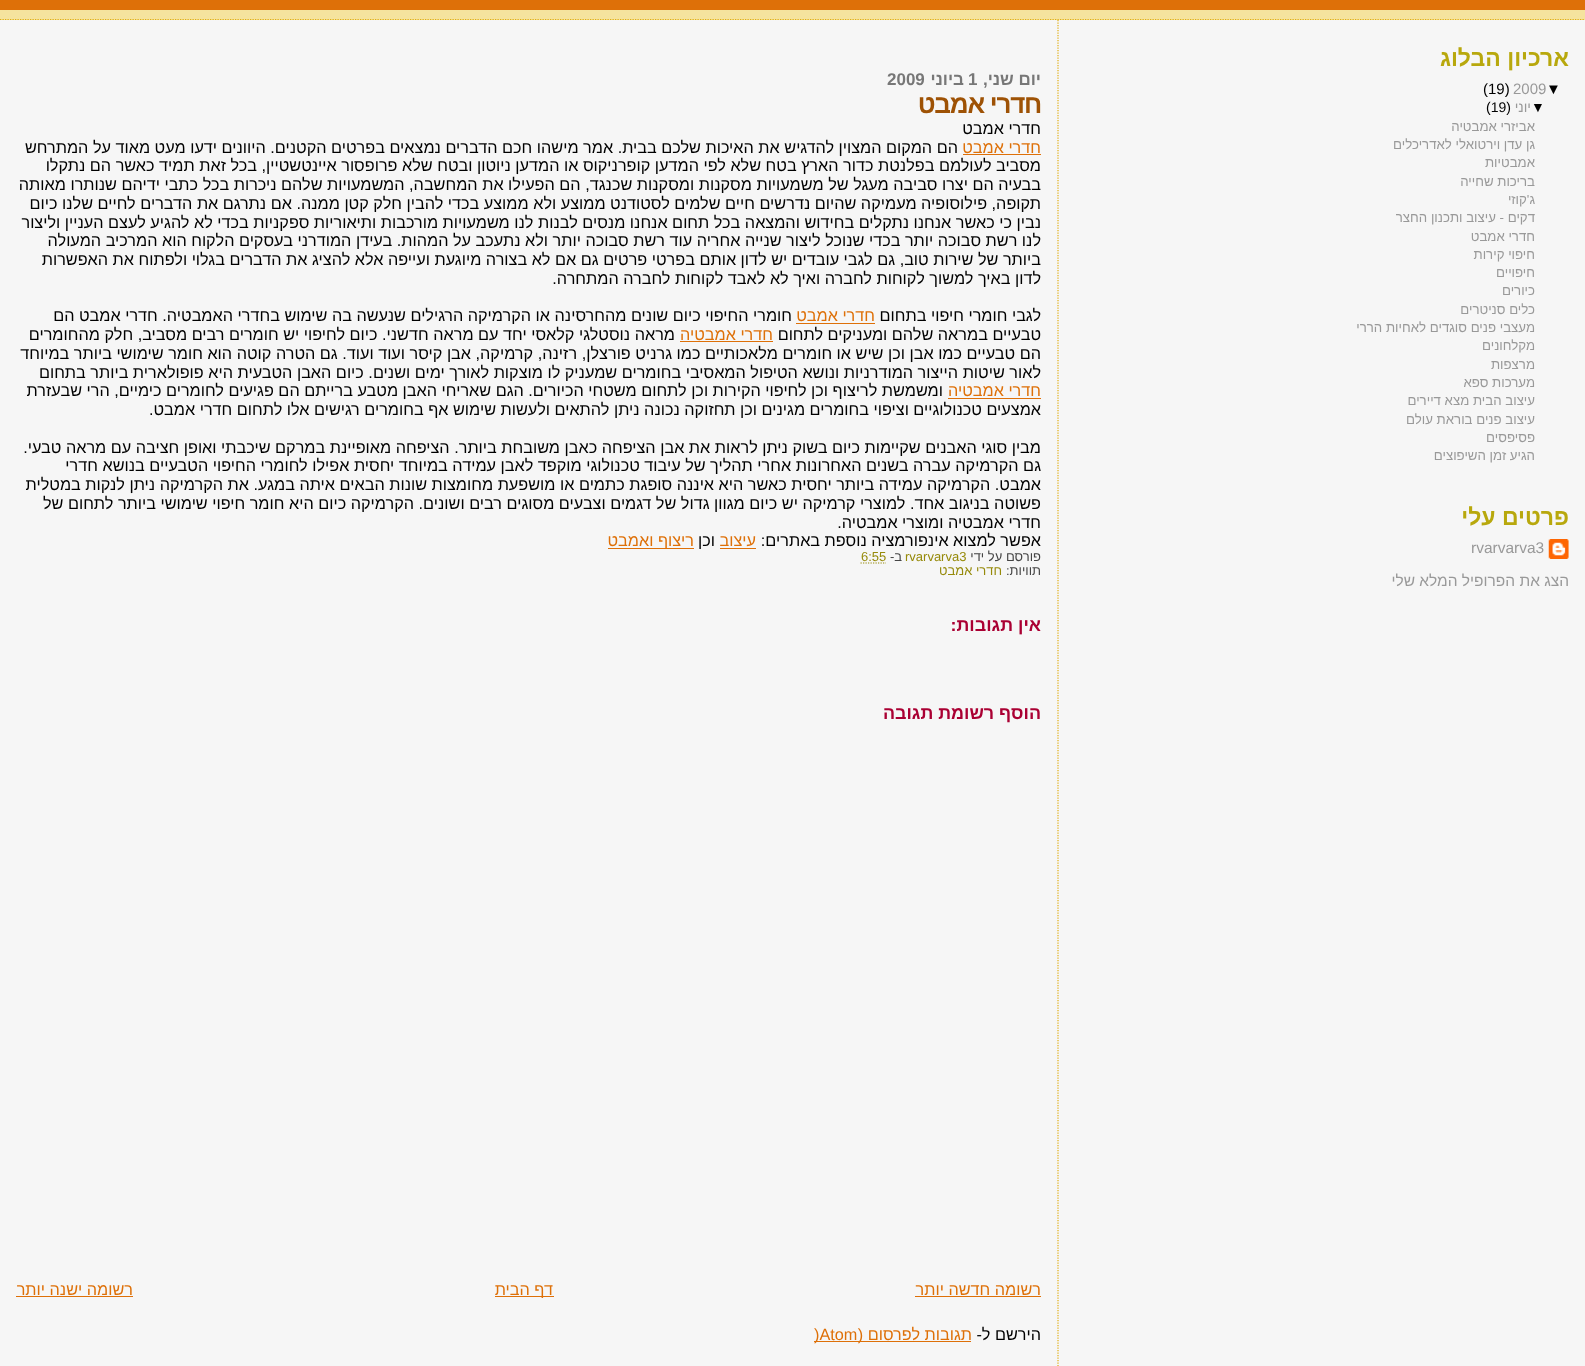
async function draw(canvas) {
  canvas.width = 1585;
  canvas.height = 1366;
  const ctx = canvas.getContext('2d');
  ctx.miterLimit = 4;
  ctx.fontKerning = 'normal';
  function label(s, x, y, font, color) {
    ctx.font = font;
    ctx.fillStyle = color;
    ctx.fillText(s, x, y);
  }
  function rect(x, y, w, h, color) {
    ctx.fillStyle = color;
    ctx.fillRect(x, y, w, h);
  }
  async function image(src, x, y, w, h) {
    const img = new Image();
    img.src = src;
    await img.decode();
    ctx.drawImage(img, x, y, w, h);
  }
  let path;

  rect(0, 0, 1585, 1366, '#f6f6f6');
  rect(0, 10, 1585, 10, '#f5e39e');
  path = new Path2D('M0 19.5H1585');
  ctx.strokeStyle = '#e0ad12';
  ctx.lineWidth = 1.2;
  ctx.setLineDash([1.25, 1.25]);
  ctx.stroke(path);
  rect(0, 0, 1585, 10, '#de7008');
  ctx.direction = 'rtl';
  label('ארכיון הבלוג', 1569, 66, 'bold 23px Liberation Sans', '#b8a80d');
  ctx.direction = 'ltr';
  label('▼', 1546, 94, '15px Liberation Sans', '#000');
  label('2009', 1513, 94, '15px Liberation Sans', '#999');
  label('(19)', 1483, 94, '15px Liberation Sans', '#000');
  label('▼', 1531, 112, '14px Liberation Sans', '#000');
  ctx.direction = 'rtl';
  label('יוני', 1531, 112, '14px Liberation Sans', '#999');
  ctx.direction = 'ltr';
  label('(19)', 1486, 112, '14px Liberation Sans', '#000');
  ctx.direction = 'rtl';
  label('אביזרי אמבטיה', 1535, 131, '13.25px Liberation Sans', '#999');
  label('גן עדן וירטואלי לאדריכלים', 1535, 149, '13.25px Liberation Sans', '#999');
  label('אמבטיות', 1535, 167, '13.25px Liberation Sans', '#999');
  label('בריכות שחייה', 1535, 186, '13.25px Liberation Sans', '#999');
  label('ג\'קוזי', 1535, 204, '13.25px Liberation Sans', '#999');
  label('דקים - עיצוב ותכנון החצר', 1535, 222, '13.25px Liberation Sans', '#999');
  label('חדרי אמבט', 1535, 241, '13.25px Liberation Sans', '#999');
  label('חיפוי קירות', 1535, 259, '13.25px Liberation Sans', '#999');
  label('חיפויים', 1535, 277, '13.25px Liberation Sans', '#999');
  label('כיורים', 1535, 295, '13.25px Liberation Sans', '#999');
  label('כלים סניטרים', 1535, 314, '13.25px Liberation Sans', '#999');
  label('מעצבי פנים סוגדים לאחיות הררי', 1535, 332, '13.25px Liberation Sans', '#999');
  label('מקלחונים', 1535, 350, '13.25px Liberation Sans', '#999');
  label('מרצפות', 1535, 369, '13.25px Liberation Sans', '#999');
  label('מערכות ספא', 1535, 387, '13.25px Liberation Sans', '#999');
  label('עיצוב הבית מצא דיירים', 1535, 405, '13.25px Liberation Sans', '#999');
  label('עיצוב פנים בוראת עולם', 1535, 424, '13.25px Liberation Sans', '#999');
  label('פסיפסים', 1535, 442, '13.25px Liberation Sans', '#999');
  label('הגיע זמן השיפוצים', 1535, 460, '13.25px Liberation Sans', '#999');
  label('פרטים עלי', 1569, 525, 'bold 23px Liberation Sans', '#b8a80d');
  await image('assets/img1.png', 1548, 539, 21, 20);
  ctx.direction = 'ltr';
  label('rvarvarva3', 1471, 553, '15.5px Liberation Sans', '#999');
  ctx.direction = 'rtl';
  label('הצג את הפרופיל המלא שלי', 1569, 586, '15.5px Liberation Sans', '#999');
  path = new Path2D('M1058 20V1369');
  ctx.stroke(path);
  label('יום שני,', 1041, 85, 'bold 17px Liberation Sans', '#777');
  ctx.direction = 'ltr';
  label('1', 968, 85, 'bold 17px Liberation Sans', '#777');
  ctx.direction = 'rtl';
  label('ביוני', 964, 85, 'bold 17px Liberation Sans', '#777');
  ctx.direction = 'ltr';
  label('2009', 887, 85, 'bold 17px Liberation Sans', '#777');
  ctx.letterSpacing = '-1.25px';
  ctx.direction = 'rtl';
  label('חדרי אמבט', 1041, 113, 'bold 26px Liberation Sans', '#9e5205');
  ctx.letterSpacing = '0px';
  label('חדרי אמבט', 1041, 134, '16.25px Liberation Sans', '#000');
  label('חדרי אמבט', 1041, 153, '16.25px Liberation Sans', '#de7008');
  rect(963, 154, 78, 1, '#de7008');
  label('הם המקום המצוין להדגיש את האיכות שלכם בבית. אמר מישהו חכם הדברים נמצאים בפרטים הקטנים. היוונים ידעו מעט מאוד על המתרחש', 958, 153, '16.25px Liberation Sans', '#000');
  label('מסביב לעולמם בפלנטת כדור הארץ בטח שלא לפי המדען קופרניקוס או המדען ניוטון ובטח שלא פרופסור איינטשטיין, בכל זאת תמיד כאשר הם נתקלו', 1041, 171, '16.25px Liberation Sans', '#000');
  label('בבעיה הם יצרו סביבה מעגל של משמעויות מסקנות ומסקנות שכנגד, הם הפעילו את המחשבה, המשמעויות שלהם ניכרות בכל כתבי ידיהם שנותרו מאותה', 1041, 190, '16.25px Liberation Sans', '#000');
  label('תקופה, פילוסופיה מעמיקה שהיום נדרשים חיים שלמים לסטודנט ממוצע ולא ממוצע בכדי להבין חלק קטן ממנה. אם נתרגם את הדברים לחיים שלנו כיום', 1041, 209, '16.25px Liberation Sans', '#000');
  label('נבין כי כאשר אנחנו נתקלים בחידוש והמצאה בכל תחום אנחנו מנסים לבנות לנו משמעויות מורכבות ותיאוריות ספקניות בכדי לא להגיע לעצם העניין וליצור', 1041, 228, '16.25px Liberation Sans', '#000');
  label('לנו רשת סבוכה יותר בכדי שנוכל ליצור שנייה אחריה עוד רשת סבוכה יותר ולא נתעכב על המהות. בעידן המודרני בעסקים הלקוח הוא המרכיב המעולה', 1041, 246, '16.25px Liberation Sans', '#000');
  label('ביותר של שירות טוב, גם לגבי עובדים יש לדון אותם בפרטי פרטים גם אם לא בצורה מיוגעת ועייפה אלא להציג את הדברים בגלוי ולפתוח את האפשרות', 1041, 265, '16.25px Liberation Sans', '#000');
  label('לדון באיך למשוך לקוחות לחברה ואיך לא לאבד לקוחות לחברה המתחרה.', 1041, 284, '16.25px Liberation Sans', '#000');
  label('לגבי חומרי חיפוי בתחום', 1041, 321, '16.25px Liberation Sans', '#000');
  label('חדרי אמבט', 875, 321, '16.25px Liberation Sans', '#de7008');
  rect(796, 323, 79, 1, '#de7008');
  label('חומרי החיפוי כיום שונים מהחרסינה או הקרמיקה הרגילים שנעשה בה שימוש בחדרי האמבטיה. חדרי אמבט הם', 792, 321, '16.25px Liberation Sans', '#000');
  label('טבעיים במראה שלהם ומעניקים לתחום', 1041, 340, '16.25px Liberation Sans', '#000');
  label('חדרי אמבטיה', 773, 340, '16.25px Liberation Sans', '#de7008');
  rect(680, 341, 93, 1, '#de7008');
  label('מראה נוסטלגי קלאסי יחד עם מראה חדשני. כיום לחיפוי יש חומרים רבים מסביב, חלק מהחומרים', 675, 340, '16.25px Liberation Sans', '#000');
  label('הם טבעיים כמו אבן וכן שיש או חומרים מלאכותיים כמו גרניט פורצלן, רזינה, קרמיקה, אבן קיסר ועוד ועוד. גם הטרה קוטה הוא חומר שימושי ביותר במיוחד', 1041, 359, '16.25px Liberation Sans', '#000');
  label('לאור שיטות הייצור המודרניות ונושא הטיפול המאסיבי בחומרים שמעניק לו מוצקות לאורך ימים ושנים. כיום האבן הטבעית היא פופולארית ביותר בתחום', 1041, 378, '16.25px Liberation Sans', '#000');
  label('חדרי אמבטיה', 1041, 396, '16.25px Liberation Sans', '#de7008');
  rect(948, 398, 93, 1, '#de7008');
  label('ומשמשת לריצוף וכן לחיפוי הקירות וכן לתחום משטחי הכיורים. הגם שאריחי האבן מטבע ברייתם הם פגיעים לחומרים כימיים, הרי שבעזרת', 943, 396, '16.25px Liberation Sans', '#000');
  label('אמצעים טכנולוגיים וציפוי בחומרים מגינים וכן תחזוקה נכונה ניתן להתאים ולעשות שימוש אף בחומרים רגישים אלו לתחום חדרי אמבט.', 1041, 415, '16.25px Liberation Sans', '#000');
  label('מבין סוגי האבנים שקיימות כיום בשוק ניתן לראות את אבן הציפחה כאבן משובחת ביותר. הציפחה מאופיינת במרקם שיכבתי ואופן חציבה עם מראה טבעי.', 1041, 453, '16.25px Liberation Sans', '#000');
  label('גם הקרמיקה עברה בשנים האחרונות אחרי תהליך של עיבוד טכנולוגי מוקפד לאבן עמידה במיוחד יחסית אפילו לחומרי החיפוי הטבעיים בנושא חדרי', 1041, 471, '16.25px Liberation Sans', '#000');
  label('אמבט. הקרמיקה עמידה ביותר יחסית כאשר היא איננה סופגת כתמים או מושפעת מחומצות שונות הבאים איתה במגע. את הקרמיקה ניתן לנקות במטלית', 1041, 490, '16.25px Liberation Sans', '#000');
  label('פשוטה בניגוב אחד. למוצרי קרמיקה יש כיום מגוון גדול של דגמים וצבעים מסוגים רבים ושונים. הקרמיקה כיום היא חומר חיפוי שימושי ביותר לתחום של', 1041, 509, '16.25px Liberation Sans', '#000');
  label('חדרי אמבטיה ומוצרי אמבטיה.', 1041, 528, '16.25px Liberation Sans', '#000');
  label('אפשר למצוא אינפורמציה נוספת באתרים:', 1041, 546, '16.25px Liberation Sans', '#000');
  label('עיצוב', 756, 546, '16.25px Liberation Sans', '#de7008');
  rect(720, 548, 36, 1, '#de7008');
  label('וכן', 715, 546, '16.25px Liberation Sans', '#000');
  rect(608, 548, 86, 1, '#de7008');
  label('ריצוף ואמבט', 694, 546, '16.25px Liberation Sans', '#de7008');
  label('פורסם על ידי', 1041, 561, '13px Liberation Sans', '#444');
  ctx.direction = 'ltr';
  label('rvarvarva3', 905, 561, '13px Liberation Sans', '#968a0a');
  ctx.direction = 'rtl';
  label('ב-', 902, 561, '13px Liberation Sans', '#444');
  ctx.direction = 'ltr';
  label('6:55', 861, 561, '13px Liberation Sans', '#968a0a');
  path = new Path2D('M860.5 563H886');
  ctx.strokeStyle = '#968a0a';
  ctx.stroke(path);
  ctx.direction = 'rtl';
  label('תוויות:', 1041, 575, '13px Liberation Sans', '#444');
  label('חדרי אמבט', 1002, 575, '13px Liberation Sans', '#968a0a');
  label('אין תגובות:', 1041, 631, 'bold 17.9px Liberation Sans', '#a03');
  label('הוסף רשומת תגובה', 1041, 719, 'bold 17.9px Liberation Sans', '#a03');
  label('רשומה חדשה יותר', 1041, 1295, '16.25px Liberation Sans', '#de7008');
  rect(915, 1296, 126, 1, '#de7008');
  rect(495, 1296, 59, 1, '#de7008');
  label('דף הבית', 553, 1295, '16.25px Liberation Sans', '#de7008');
  label('רשומה ישנה יותר', 133, 1295, '16.25px Liberation Sans', '#de7008');
  rect(16, 1296, 117, 1, '#de7008');
  label('הירשם ל-', 1041, 1340, '16.25px Liberation Sans', '#000');
  rect(814, 1341, 157, 1, '#de7008');
  label('תגובות לפרסום (', 972, 1340, '16.25px Liberation Sans', '#de7008');
  ctx.direction = 'ltr';
  label(')Atom', 814, 1340, '16.25px Liberation Sans', '#de7008');
}

draw(document.querySelector('canvas'));
